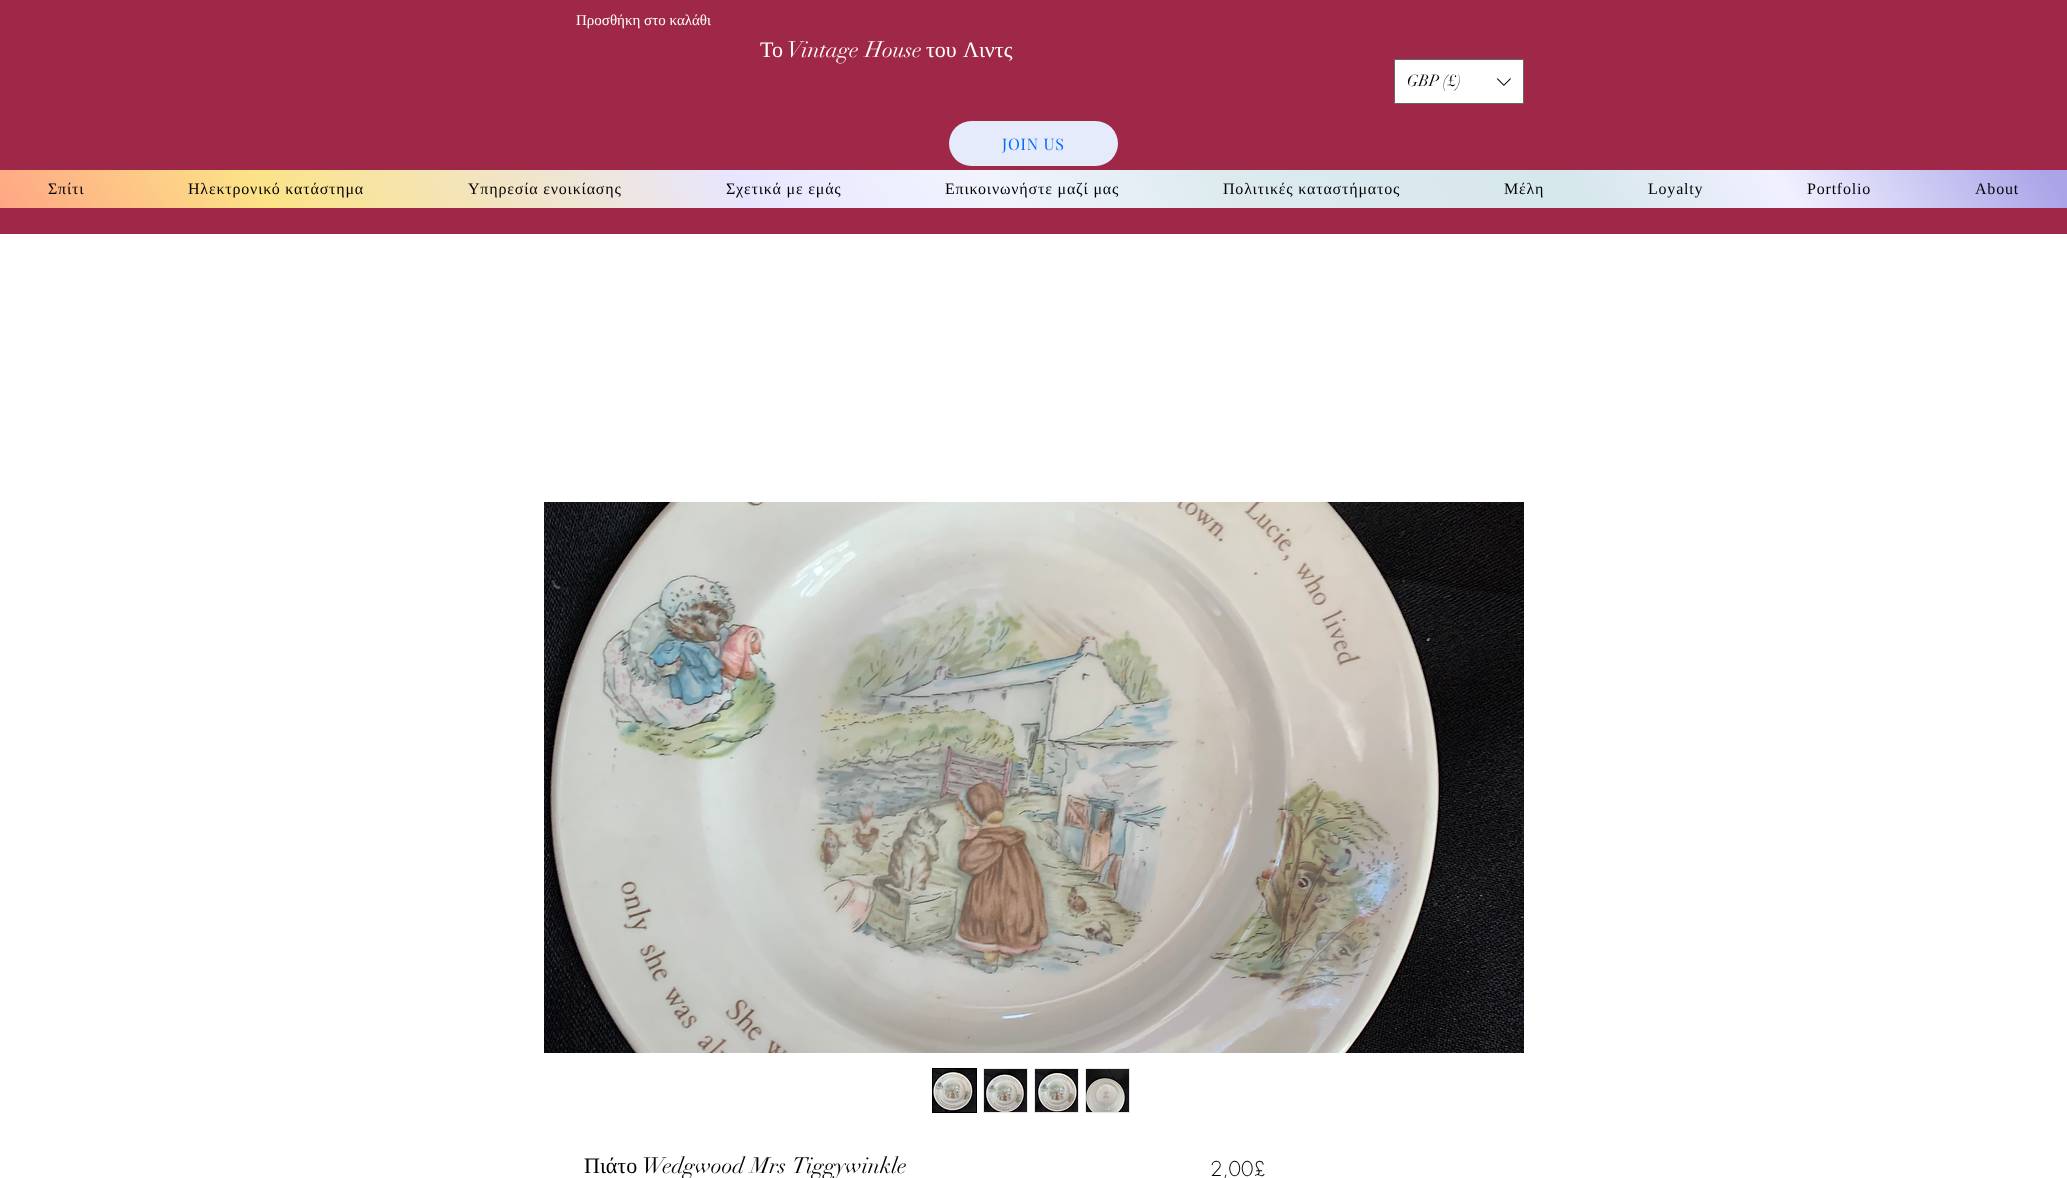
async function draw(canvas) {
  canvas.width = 2067;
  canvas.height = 1178;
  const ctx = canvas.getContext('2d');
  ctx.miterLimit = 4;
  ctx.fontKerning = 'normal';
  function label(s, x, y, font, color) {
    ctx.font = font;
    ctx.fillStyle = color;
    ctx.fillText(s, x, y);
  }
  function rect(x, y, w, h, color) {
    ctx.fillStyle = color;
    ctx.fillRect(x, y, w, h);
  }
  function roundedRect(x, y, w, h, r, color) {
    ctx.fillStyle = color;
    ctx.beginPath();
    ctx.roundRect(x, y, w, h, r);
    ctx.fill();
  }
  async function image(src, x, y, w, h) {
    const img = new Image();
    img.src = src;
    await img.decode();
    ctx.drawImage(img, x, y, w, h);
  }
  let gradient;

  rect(0, 0, 2067, 1178, '#fff');
  rect(0, 0, 2067, 234, '#9f2747');
  label('Προσθήκη στο καλάθι', 576, 25, '15px Liberation Serif', '#fff');
  label('Το', 760, 57, '22px Liberation Serif', '#fff');
  ctx.wordSpacing = '1px';
  label('Vintage House', 787, 57, '22px didot', '#fff');
  ctx.wordSpacing = '0px';
  label('του', 926, 57, '22px Liberation Serif', '#fff');
  label('Λιντς', 963, 57, '22px Liberation Serif', '#fff');
  ctx.beginPath();
  ctx.rect(1394.5, 59.5, 129, 44);
  ctx.fill();
  ctx.strokeStyle = '#666';
  ctx.stroke();
  label('GBP (£)', 1407, 86, '16px didot', '#000');
  await image('assets/img1.png', 1496, 78, 15, 8);
  roundedRect(949, 121, 169, 45, 22.5, '#e5ebfa');
  ctx.letterSpacing = '0.8px';
  label('JOIN US', 1002, 150, '16px Playfair Display', '#0069ff');
  gradient = ctx.createLinearGradient(282, 659, 1785, -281);
  gradient.addColorStop(0, '#ffa685');
  gradient.addColorStop(0.13, '#fce387');
  gradient.addColorStop(0.36, '#e8e6ff');
  gradient.addColorStop(0.48, '#f1f4fd');
  gradient.addColorStop(0.59, '#ddebef');
  gradient.addColorStop(0.76, '#d6e7ec');
  gradient.addColorStop(0.86, '#f1f0ff');
  gradient.addColorStop(0.99, '#a9a5e8');
  ctx.fillStyle = gradient;
  ctx.fillRect(0, 170, 2067, 38);
  label('Σπίτι', 48, 194, '16px Liberation Serif', '#000');
  label('Ηλεκτρονικό κατάστημα', 188, 194, '16px Liberation Serif', '#000');
  label('Υπηρεσία ενοικίασης', 468, 194, '16px Liberation Serif', '#000');
  label('Σχετικά με εμάς', 726, 194, '16px Liberation Serif', '#000');
  label('Επικοινωνήστε μαζί μας', 945, 194, '16px Liberation Serif', '#000');
  label('Πολιτικές καταστήματος', 1223, 194, '16px Liberation Serif', '#000');
  label('Μέλη', 1504, 194, '16px Liberation Serif', '#000');
  label('Loyalty', 1648, 194, '16px Liberation Serif', '#000');
  label('Portfolio', 1807, 194, '16px Liberation Serif', '#000');
  label('About', 1975, 194, '16px Liberation Serif', '#000');
  await image('assets/img2.png', 544, 502, 980, 551);
  ctx.strokeStyle = '#000';
  ctx.strokeRect(932.5, 1068.5, 44, 44);
  await image('assets/img3.png', 933, 1069, 43, 43);
  ctx.strokeStyle = '#e8e6e6';
  ctx.strokeRect(983.5, 1068.5, 44, 44);
  await image('assets/img4.png', 984, 1069, 43, 43);
  ctx.strokeRect(1034.5, 1068.5, 44, 44);
  await image('assets/img5.png', 1035, 1069, 43, 43);
  ctx.strokeRect(1085.5, 1068.5, 44, 44);
  await image('assets/img6.png', 1086, 1069, 43, 43);
  ctx.letterSpacing = '0px';
  label('Πιάτο', 584, 1173, '22px Liberation Serif', '#000');
  ctx.wordSpacing = '1px';
  label('Wedgwood Mrs Tiggywinkle', 642, 1173, '22px didot', '#000');
  ctx.wordSpacing = '0px';
  label('2,00£', 1210, 1176, '300 20px futura', '#000');
}

draw(document.querySelector('canvas'));
